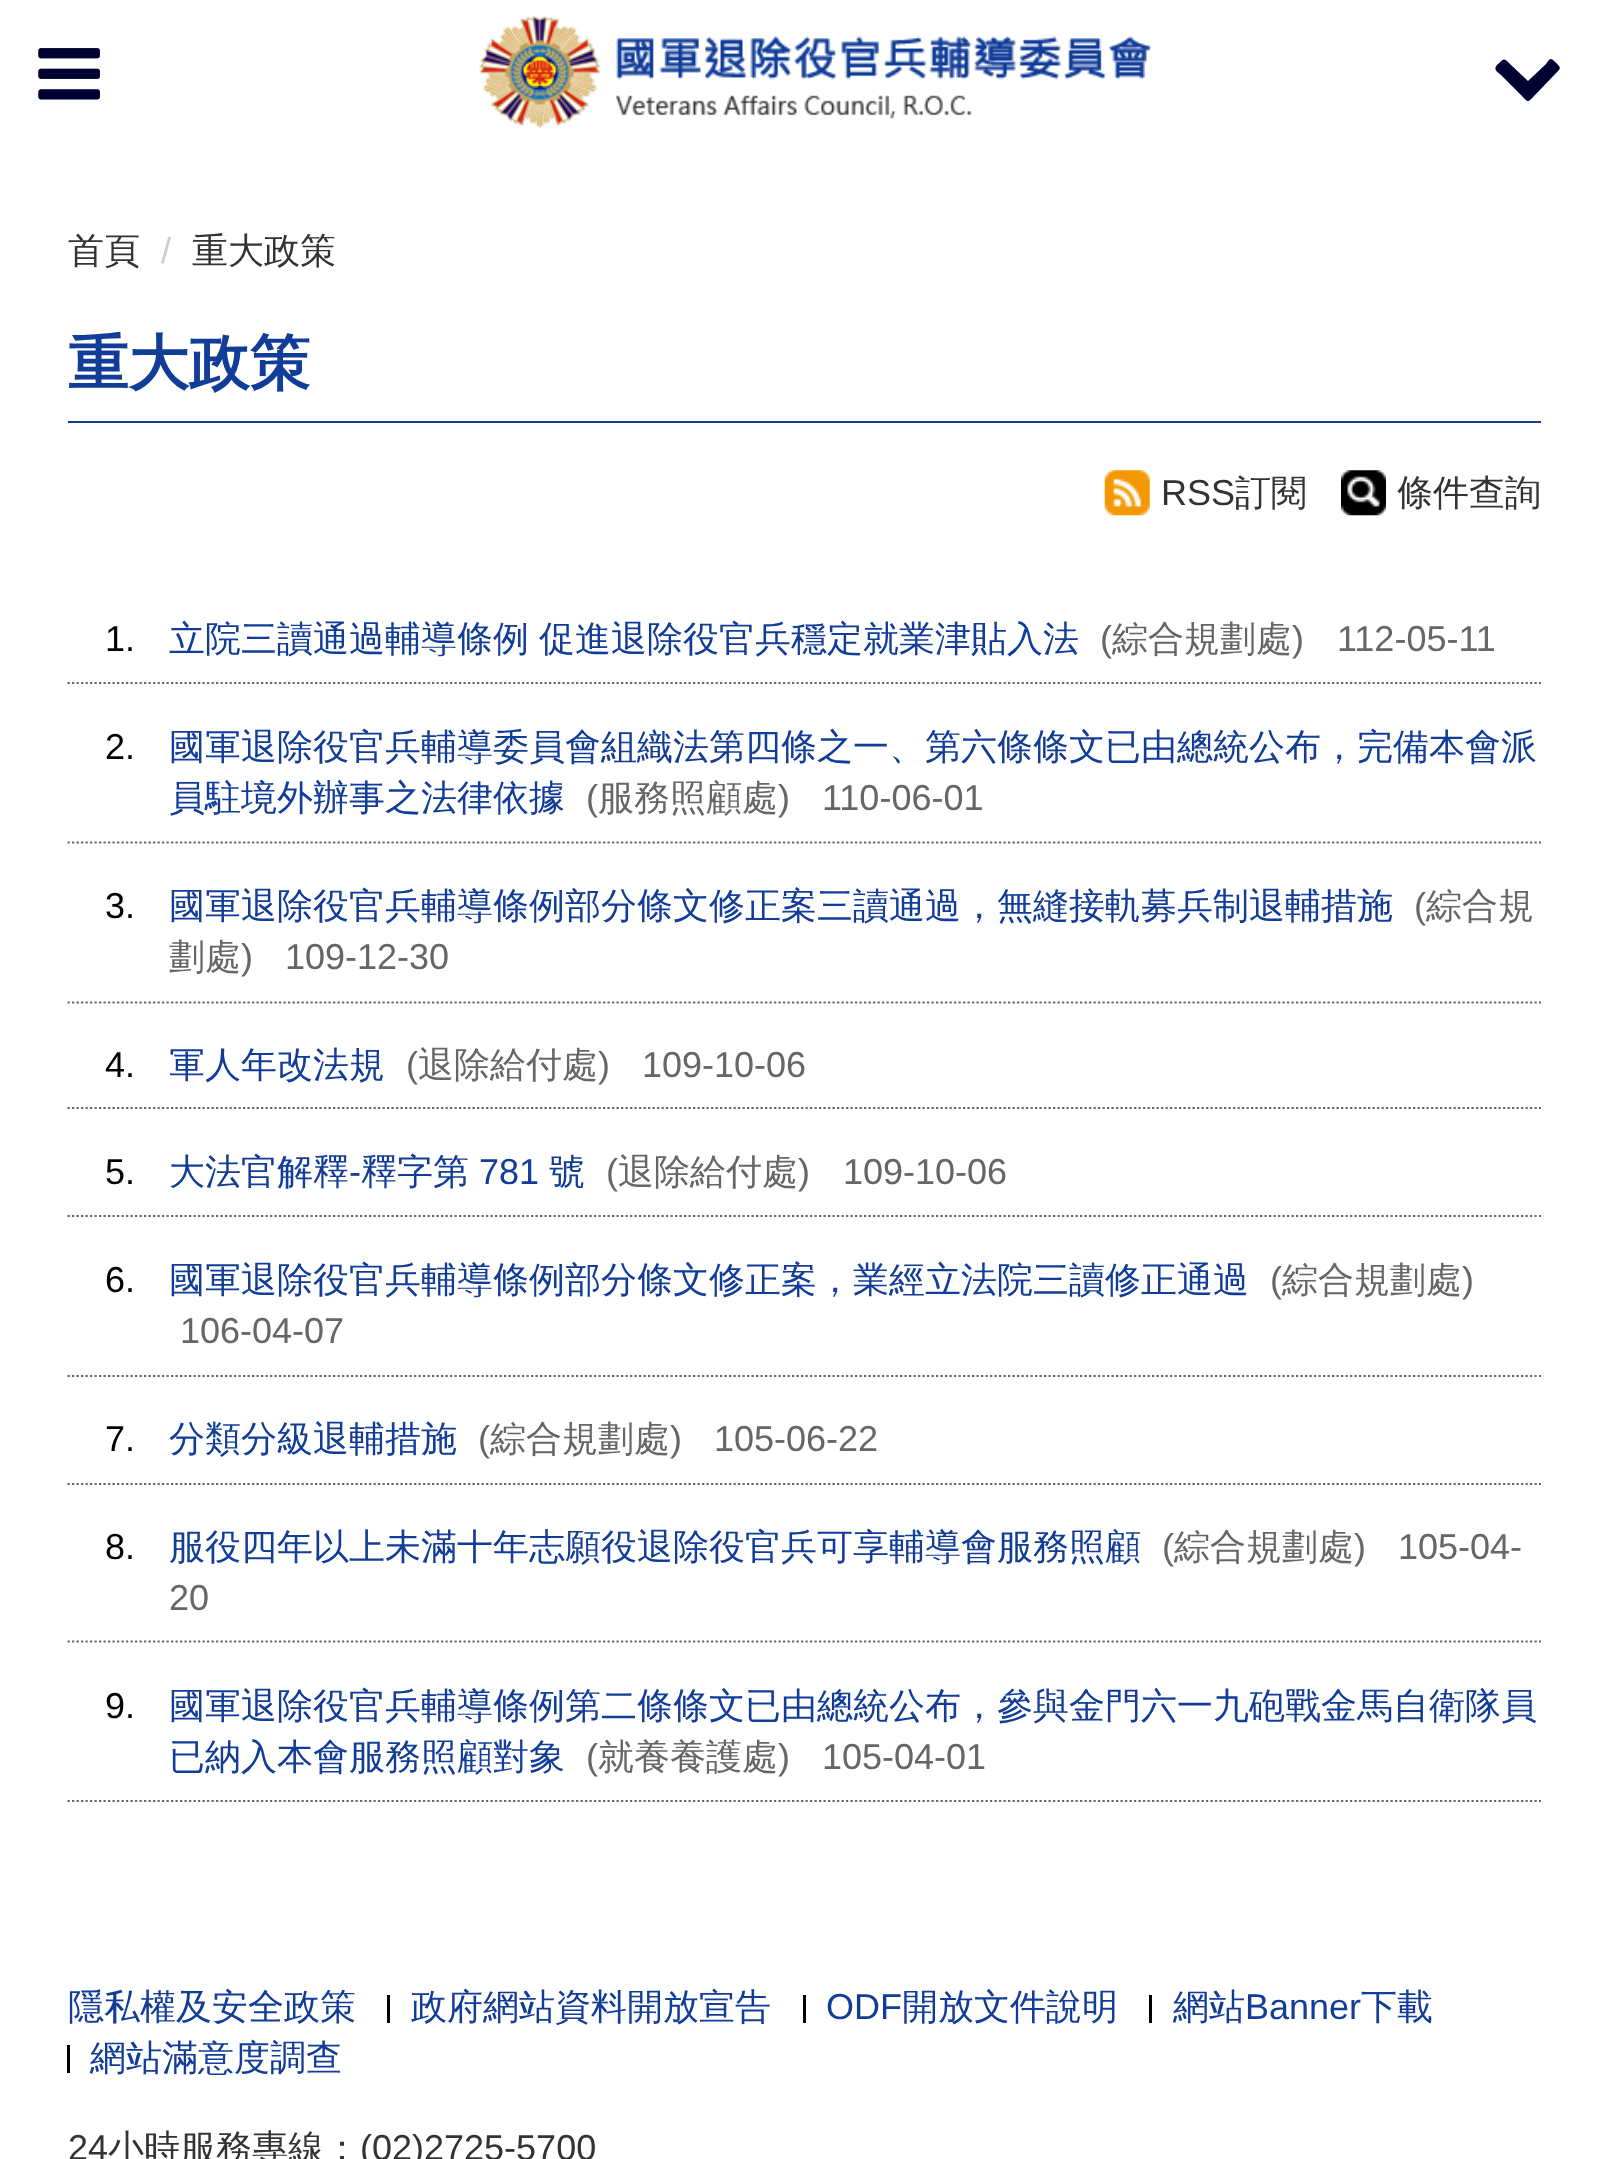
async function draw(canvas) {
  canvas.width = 1608;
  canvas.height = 2159;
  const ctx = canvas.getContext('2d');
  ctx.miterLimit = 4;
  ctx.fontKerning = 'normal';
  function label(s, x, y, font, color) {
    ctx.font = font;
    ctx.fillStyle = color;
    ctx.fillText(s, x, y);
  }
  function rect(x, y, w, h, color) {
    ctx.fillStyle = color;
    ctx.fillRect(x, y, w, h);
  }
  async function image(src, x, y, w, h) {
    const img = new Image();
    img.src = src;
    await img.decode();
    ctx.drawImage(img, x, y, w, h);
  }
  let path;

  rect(0, 0, 1608, 2159, '#fff');
  await image('assets/img1.png', 38, 48, 62, 52);
  await image('assets/img2.png', 479, 16, 673, 113);
  ctx.fillStyle = '#003';
  path = new Path2D('M1559 70L1535 95C1527 103 1529 103 1521 95L1501 75C1497 71 1493 70 1497 65C1504 59 1503 57 1510 64L1528 81L1546 64C1549 60 1550 57 1554 61C1556 63 1562 67 1559 70Z');
  ctx.fill(path);
  label('首頁', 68, 263, '500 36px WenQuanYi Zen Hei', '#333');
  label('/', 161, 263, '36px Liberation Sans', '#ccc');
  label('重大政策', 192, 263, '500 36px WenQuanYi Zen Hei', '#333');
  rect(68, 421, 1473, 2, '#113d98');
  label('重大政策', 68, 384, 'bold 60.5px WenQuanYi Zen Hei', '#113d98');
  await image('assets/img3.png', 1104, 470, 46, 46);
  label('RSS', 1161, 505, '36px Liberation Sans', '#333');
  label('訂閱', 1235, 505, '500 36px WenQuanYi Zen Hei', '#333');
  await image('assets/img4.png', 1341, 470, 45, 46);
  label('條件查詢', 1397, 505, '500 36px WenQuanYi Zen Hei', '#333');
  path = new Path2D('M67.5 683H1541');
  ctx.strokeStyle = '#666';
  ctx.lineWidth = 2.2;
  ctx.setLineDash([2.25, 2.25]);
  ctx.stroke(path);
  label('1.', 105, 651, '36px Liberation Sans', '#000');
  label('立院三讀通過輔導條例', 169, 651, '500 36px WenQuanYi Zen Hei', '#113d98');
  label('促進退除役官兵穩定就業津貼入法', 539, 651, '500 36px WenQuanYi Zen Hei', '#113d98');
  label('(', 1100, 651, '36px Liberation Sans', '#666');
  label('綜合規劃處', 1112, 651, '500 36px WenQuanYi Zen Hei', '#666');
  label(')', 1292, 651, '36px Liberation Sans', '#666');
  label('112-05-11', 1337, 651, '36px Liberation Sans', '#666');
  path = new Path2D('M67.5 842.5H1541');
  ctx.stroke(path);
  label('2.', 105, 759, '36px Liberation Sans', '#000');
  label('國軍退除役官兵輔導委員會組織法第四條之一、第六條條文已由總統公布，完備本會派', 169, 759, '500 36px WenQuanYi Zen Hei', '#113d98');
  label('員駐境外辦事之法律依據', 169, 810, '500 36px WenQuanYi Zen Hei', '#113d98');
  label('(', 586, 810, '36px Liberation Sans', '#666');
  label('服務照顧處', 598, 810, '500 36px WenQuanYi Zen Hei', '#666');
  label(')', 778, 810, '36px Liberation Sans', '#666');
  label('110-06-01', 822, 810, '36px Liberation Sans', '#666');
  path = new Path2D('M67.5 1002.5H1541');
  ctx.stroke(path);
  label('3.', 105, 918, '36px Liberation Sans', '#000');
  label('國軍退除役官兵輔導條例部分條文修正案三讀通過，無縫接軌募兵制退輔措施', 169, 918, '500 36px WenQuanYi Zen Hei', '#113d98');
  label('(', 1414, 918, '36px Liberation Sans', '#666');
  label('綜合規', 1426, 918, '500 36px WenQuanYi Zen Hei', '#666');
  label('劃處', 169, 969, '500 36px WenQuanYi Zen Hei', '#666');
  label(')', 241, 969, '36px Liberation Sans', '#666');
  label('109-12-30', 285, 969, '36px Liberation Sans', '#666');
  path = new Path2D('M67.5 1108H1541');
  ctx.stroke(path);
  label('4.', 105, 1077, '36px Liberation Sans', '#000');
  label('軍人年改法規', 169, 1077, '500 36px WenQuanYi Zen Hei', '#113d98');
  label('(', 406, 1077, '36px Liberation Sans', '#666');
  label('退除給付處', 418, 1077, '500 36px WenQuanYi Zen Hei', '#666');
  label(')', 598, 1077, '36px Liberation Sans', '#666');
  label('109-10-06', 642, 1077, '36px Liberation Sans', '#666');
  path = new Path2D('M67.5 1216H1541');
  ctx.stroke(path);
  label('5.', 105, 1184, '36px Liberation Sans', '#000');
  label('大法官解釋', 169, 1184, '500 36px WenQuanYi Zen Hei', '#113d98');
  label('-', 349, 1184, '36px Liberation Sans', '#113d98');
  label('釋字第', 361, 1184, '500 36px WenQuanYi Zen Hei', '#113d98');
  label('781', 479, 1184, '36px Liberation Sans', '#113d98');
  label('號', 549, 1184, '500 36px WenQuanYi Zen Hei', '#113d98');
  label('(', 606, 1184, '36px Liberation Sans', '#666');
  label('退除給付處', 618, 1184, '500 36px WenQuanYi Zen Hei', '#666');
  label(')', 798, 1184, '36px Liberation Sans', '#666');
  label('109-10-06', 843, 1184, '36px Liberation Sans', '#666');
  path = new Path2D('M67.5 1376H1541');
  ctx.stroke(path);
  label('6.', 105, 1292, '36px Liberation Sans', '#000');
  label('國軍退除役官兵輔導條例部分條文修正案，業經立法院三讀修正通過', 169, 1292, '500 36px WenQuanYi Zen Hei', '#113d98');
  label('(', 1270, 1292, '36px Liberation Sans', '#666');
  label('綜合規劃處', 1282, 1292, '500 36px WenQuanYi Zen Hei', '#666');
  label(')', 1462, 1292, '36px Liberation Sans', '#666');
  label('106-04-07', 180, 1343, '36px Liberation Sans', '#666');
  path = new Path2D('M67.5 1484H1541');
  ctx.stroke(path);
  label('7.', 105, 1451, '36px Liberation Sans', '#000');
  label('分類分級退輔措施', 169, 1451, '500 36px WenQuanYi Zen Hei', '#113d98');
  label('(', 478, 1451, '36px Liberation Sans', '#666');
  label('綜合規劃處', 490, 1451, '500 36px WenQuanYi Zen Hei', '#666');
  label(')', 670, 1451, '36px Liberation Sans', '#666');
  label('105-06-22', 714, 1451, '36px Liberation Sans', '#666');
  path = new Path2D('M67.5 1641.5H1541');
  ctx.stroke(path);
  label('8.', 105, 1559, '36px Liberation Sans', '#000');
  label('服役四年以上未滿十年志願役退除役官兵可享輔導會服務照顧', 169, 1559, '500 36px WenQuanYi Zen Hei', '#113d98');
  label('(', 1162, 1559, '36px Liberation Sans', '#666');
  label('綜合規劃處', 1174, 1559, '500 36px WenQuanYi Zen Hei', '#666');
  label(')', 1354, 1559, '36px Liberation Sans', '#666');
  label('105-04-', 1398, 1559, '36px Liberation Sans', '#666');
  label('20', 169, 1610, '36px Liberation Sans', '#666');
  path = new Path2D('M67.5 1801H1541');
  ctx.stroke(path);
  label('9.', 105, 1718, '36px Liberation Sans', '#000');
  label('國軍退除役官兵輔導條例第二條條文已由總統公布，參與金門六一九砲戰金馬自衛隊員', 169, 1718, '500 36px WenQuanYi Zen Hei', '#113d98');
  label('已納入本會服務照顧對象', 169, 1769, '500 36px WenQuanYi Zen Hei', '#113d98');
  label('(', 586, 1769, '36px Liberation Sans', '#666');
  label('就養養護處', 598, 1769, '500 36px WenQuanYi Zen Hei', '#666');
  label(')', 778, 1769, '36px Liberation Sans', '#666');
  label('105-04-01', 822, 1769, '36px Liberation Sans', '#666');
  label('隱私權及安全政策', 68, 2019, '500 36px WenQuanYi Zen Hei', '#113d98');
  rect(387, 1995, 3, 28, '#000');
  label('政府網站資料開放宣告', 411, 2019, '500 36px WenQuanYi Zen Hei', '#113d98');
  rect(803, 1995, 3, 28, '#000');
  label('ODF', 826, 2019, '36px Liberation Sans', '#113d98');
  label('開放文件說明', 902, 2019, '500 36px WenQuanYi Zen Hei', '#113d98');
  rect(1149, 1995, 3, 28, '#000');
  label('網站', 1173, 2019, '500 36px WenQuanYi Zen Hei', '#113d98');
  label('Banner', 1245, 2019, '36px Liberation Sans', '#113d98');
  label('下載', 1361, 2019, '500 36px WenQuanYi Zen Hei', '#113d98');
  rect(67, 2045, 3, 28, '#000');
  label('網站滿意度調查', 90, 2070, '500 36px WenQuanYi Zen Hei', '#113d98');
  label('24', 68, 2160, '36px Liberation Sans', '#333');
  label('小時服務專線：', 108, 2160, '500 36px WenQuanYi Zen Hei', '#333');
  label('(02)2725-5700', 360, 2160, '36px Liberation Sans', '#333');
}

draw(document.querySelector('canvas'));
